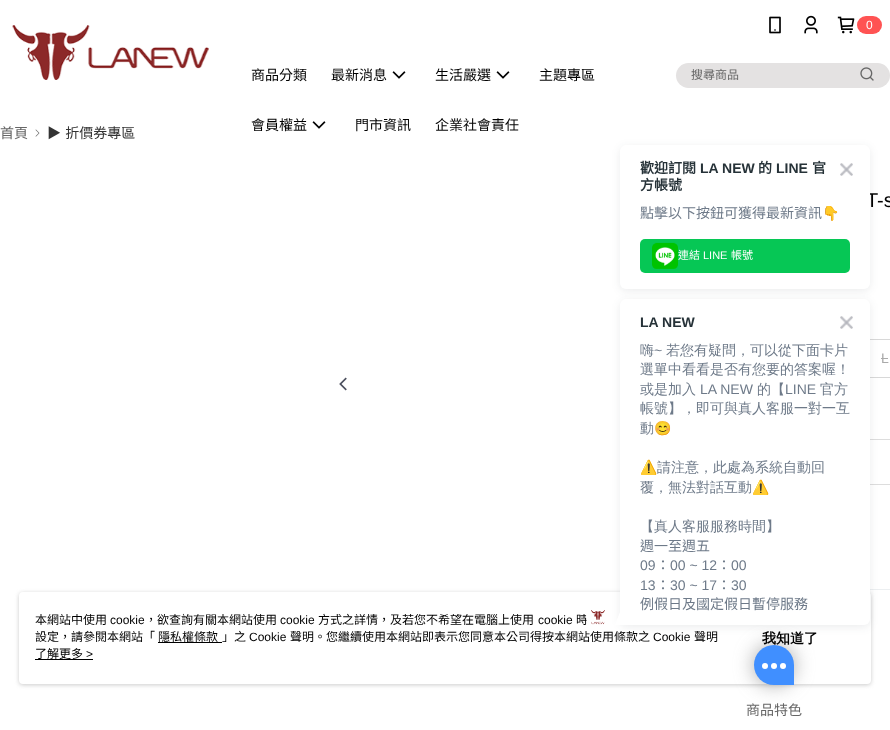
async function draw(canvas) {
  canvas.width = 890;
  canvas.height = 730;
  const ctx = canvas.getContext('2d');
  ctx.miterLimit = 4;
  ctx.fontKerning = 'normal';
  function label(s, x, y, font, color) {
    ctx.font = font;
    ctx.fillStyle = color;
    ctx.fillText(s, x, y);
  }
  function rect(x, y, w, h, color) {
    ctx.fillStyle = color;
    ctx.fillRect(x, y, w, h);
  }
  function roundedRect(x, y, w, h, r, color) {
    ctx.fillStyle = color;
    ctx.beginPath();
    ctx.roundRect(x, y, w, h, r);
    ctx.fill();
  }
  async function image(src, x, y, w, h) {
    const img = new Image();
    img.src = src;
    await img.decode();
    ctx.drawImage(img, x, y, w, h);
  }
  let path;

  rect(0, 0, 890, 730, '#fff');
  await image('assets/img1.png', 12, 25, 197, 55);
  await image('assets/img2.png', 769, 16, 12, 18);
  await image('assets/img3.png', 804, 15, 14, 19);
  await image('assets/img4.png', 837, 16, 18, 18);
  roundedRect(857, 16, 25, 18, 9, '#ff5353');
  label('0', 866, 29, '12px Liberation Sans', '#fff');
  label('商品分類', 251, 80, '14px Noto Sans CJK TC', '#000');
  label('最新消息', 331, 80, '14px Noto Sans CJK TC', '#000');
  await image('assets/img5.png', 392, 71, 14, 8);
  label('生活嚴選', 435, 80, '14px Noto Sans CJK TC', '#000');
  await image('assets/img5.png', 496, 71, 14, 8);
  label('主題專區', 539, 80, '14px Noto Sans CJK TC', '#000');
  label('會員權益', 251, 130, '14px Noto Sans CJK TC', '#000');
  await image('assets/img5.png', 312, 121, 14, 8);
  label('門市資訊', 355, 130, '14px Noto Sans CJK TC', '#000');
  label('企業社會責任', 435, 130, '14px Noto Sans CJK TC', '#000');
  roundedRect(676, 63, 214, 25, 12.5, '#e4e2e2');
  label('搜尋商品', 691, 79, '12px Noto Sans CJK TC', '#666');
  await image('assets/img6.png', 860, 67, 14, 14);
  label('首頁', 0, 138, '14px Noto Sans CJK TC', '#666');
  await image('assets/img7.png', 35, 129, 5, 8);
  ctx.wordSpacing = '1px';
  label('▶ 折價券專區', 47, 138, '14px Noto Sans CJK TC', '#333');
  await image('assets/img8.png', 339, 377, 8, 14);
  ctx.wordSpacing = '0px';
  label('T-s', 866, 207, '20px Liberation Sans', '#000');
  ctx.strokeStyle = '#d8d8d8';
  ctx.strokeRect(860.5, 339.5, 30, 38);
  label('L', 881, 363, '14px Liberation Sans', '#aaa');
  rect(881, 358, 7, 1, '#aaa');
  ctx.strokeStyle = '#ddd';
  ctx.strokeRect(746.5, 439.5, 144, 45);
  rect(870, 589, 20, 1, '#eceff1');
  label('商品特色', 746, 715, '14px Noto Sans CJK TC', '#666');
  ctx.fillStyle = '#232f3517';
  ctx.filter = 'blur(4px)';
  ctx.beginPath();
  ctx.roundRect(620, 147, 250, 144, 6);
  ctx.fill();
  ctx.filter = 'none';
  roundedRect(620, 145, 250, 144, 6, '#fff');
  label('歡迎訂閱', 640, 173, 'bold 14px Noto Sans CJK TC', '#263238');
  label('LA NEW', 700, 173, 'bold 14px Liberation Sans', '#263238');
  label('的', 758, 173, 'bold 14px Noto Sans CJK TC', '#263238');
  label('LINE', 776, 173, 'bold 14px Liberation Sans', '#263238');
  label('官', 812, 173, 'bold 14px Noto Sans CJK TC', '#263238');
  label('方帳號', 640, 190, 'bold 14px Noto Sans CJK TC', '#263238');
  await image('assets/img9.png', 840, 163, 13, 13);
  label('點擊以下按鈕可獲得最新資訊', 640, 218, '14px Noto Sans CJK TC', '#6e7a89');
  label('👇', 822, 218, '14px Noto Color Emoji', '#6e7a89');
  roundedRect(640, 239, 210, 34, 5, '#06c755');
  await image('assets/img10.png', 652, 242, 26, 27);
  label('連結', 678, 259, '11px Noto Sans CJK TC', '#fff');
  label('LINE', 703, 259, '11px Liberation Sans', '#fff');
  label('帳號', 731, 259, '11px Noto Sans CJK TC', '#fff');
  ctx.fillStyle = '#97979780';
  ctx.filter = 'blur(2px)';
  ctx.beginPath();
  ctx.roundRect(19, 593, 852, 92, 4);
  ctx.fill();
  ctx.filter = 'none';
  roundedRect(19, 592, 852, 92, 4, '#fff');
  ctx.fillStyle = '#232f3517';
  ctx.filter = 'blur(4px)';
  ctx.beginPath();
  ctx.roundRect(620, 301, 250, 326, 6);
  ctx.fill();
  ctx.filter = 'none';
  ctx.fillStyle = '#777777a3';
  ctx.filter = 'blur(10px)';
  ctx.beginPath();
  ctx.roundRect(754, 645, 40, 40, 20);
  ctx.fill();
  ctx.filter = 'none';
  ctx.fillStyle = '#fff';
  ctx.beginPath();
  ctx.roundRect(620, 299, 250, 326, [6, 6, 6, 0]);
  ctx.fill();
  label('LA NEW', 640, 327, 'bold 14px Liberation Sans', '#263238');
  await image('assets/img9.png', 840, 316, 13, 13);
  label('嗨', 640, 355, '500 14px WenQuanYi Zen Hei', '#6e7a89');
  label('~', 654, 355, '14px Liberation Sans', '#6e7a89');
  label('若您有疑問，可以從下面卡片', 666, 355, '500 14px WenQuanYi Zen Hei', '#6e7a89');
  label('選單中看看是否有您要的答案喔！', 640, 374, '500 14px WenQuanYi Zen Hei', '#6e7a89');
  label('或是加入', 640, 394, '500 14px WenQuanYi Zen Hei', '#6e7a89');
  label('LA NEW', 700, 394, '14px Liberation Sans', '#6e7a89');
  label('的【', 757, 394, '500 14px WenQuanYi Zen Hei', '#6e7a89');
  label('LINE', 785, 394, '14px Liberation Sans', '#6e7a89');
  label('官方', 820, 394, '500 14px WenQuanYi Zen Hei', '#6e7a89');
  label('帳號】，即可與真人客服一對一互', 640, 413, '500 14px WenQuanYi Zen Hei', '#6e7a89');
  label('動', 640, 433, '500 14px WenQuanYi Zen Hei', '#6e7a89');
  label('😊', 654, 433, '14px Noto Color Emoji', '#6e7a89');
  label('⚠️', 640, 472, '14px Noto Color Emoji', '#6e7a89');
  label('請注意，此處為系統自動回', 657, 472, '500 14px WenQuanYi Zen Hei', '#6e7a89');
  label('覆，無法對話互動', 640, 492, '500 14px WenQuanYi Zen Hei', '#6e7a89');
  label('⚠️', 752, 492, '14px Noto Color Emoji', '#6e7a89');
  label('【真人客服服務時間】', 640, 531, '500 14px WenQuanYi Zen Hei', '#6e7a89');
  label('週一至週五', 640, 551, '14px Noto Sans CJK TC', '#6e7a89');
  label('09', 640, 570, '14px Liberation Sans', '#6e7a89');
  label('：', 656, 570, '14px Noto Sans CJK TC', '#6e7a89');
  label('00 ~ 12', 670, 570, '14px Liberation Sans', '#6e7a89');
  label('：', 717, 570, '14px Noto Sans CJK TC', '#6e7a89');
  label('00', 731, 570, '14px Liberation Sans', '#6e7a89');
  label('13', 640, 590, '14px Liberation Sans', '#6e7a89');
  label('：', 656, 590, '14px Noto Sans CJK TC', '#6e7a89');
  label('30 ~ 17', 670, 590, '14px Liberation Sans', '#6e7a89');
  label('：', 717, 590, '14px Noto Sans CJK TC', '#6e7a89');
  label('30', 731, 590, '14px Liberation Sans', '#6e7a89');
  label('例假日及國定假日暫停服務', 640, 609, '14px Noto Sans CJK TC', '#6e7a89');
  label('時', 576, 624, '12px Noto Sans CJK TC', '#000');
  ctx.fillStyle = '#fff';
  ctx.beginPath();
  ctx.arc(598, 617, 11, 0, 2 * Math.PI);
  ctx.fill();
  ctx.strokeStyle = '#fff';
  ctx.lineWidth = 2;
  ctx.stroke();
  await image('assets/img11.png', 591, 610, 14, 15);
  path = new Path2D('M620 625H615L620 612Z');
  ctx.fill(path);
  label('本網站中使用', 35, 624, '12px Noto Sans CJK TC', '#000');
  label('cookie', 110, 624, '12px Liberation Sans', '#000');
  label('，欲查詢有關本網站使用', 145, 624, '12px Noto Sans CJK TC', '#000');
  label('cookie', 280, 624, '12px Liberation Sans', '#000');
  label('方式之詳情，及若您不希望在電腦上使用', 318, 624, '12px Noto Sans CJK TC', '#000');
  label('cookie', 538, 624, '12px Liberation Sans', '#000');
  label('設定，請參閱本網站「', 35, 641, '12px Noto Sans CJK TC', '#000');
  label('隱私權條款', 158, 641, '12px Noto Sans CJK TC', '#000');
  rect(158, 642, 64, 1, '#000');
  label('」之', 222, 641, '12px Noto Sans CJK TC', '#000');
  label('Cookie', 249, 641, '12px Liberation Sans', '#000');
  label('聲明。您繼續使用本網站即表示您同意本公司得按本網站使用條款之', 290, 641, '12px Noto Sans CJK TC', '#000');
  label('Cookie', 653, 641, '12px Liberation Sans', '#000');
  label('聲明', 694, 641, '12px Noto Sans CJK TC', '#000');
  label('了解更多', 35, 658, '12px Noto Sans CJK TC', '#000');
  label('>', 86, 658, '12px Liberation Sans', '#000');
  rect(35, 659, 58, 1, '#000');
  label('我知道了', 762, 643, 'bold 14px WenQuanYi Zen Hei', '#000');
  ctx.fillStyle = '#408fff';
  ctx.beginPath();
  ctx.roundRect(754, 645, 40, 40, [20, 20, 0, 20]);
  ctx.fill();
  ctx.fillStyle = '#fff';
  ctx.beginPath();
  ctx.arc(765, 666, 3, 0, 2 * Math.PI);
  ctx.fill();
  ctx.beginPath();
  ctx.arc(774, 666, 3, 0, 2 * Math.PI);
  ctx.fill();
  ctx.beginPath();
  ctx.arc(783, 666, 3, 0, 2 * Math.PI);
  ctx.fill();
}

draw(document.querySelector('canvas'));
